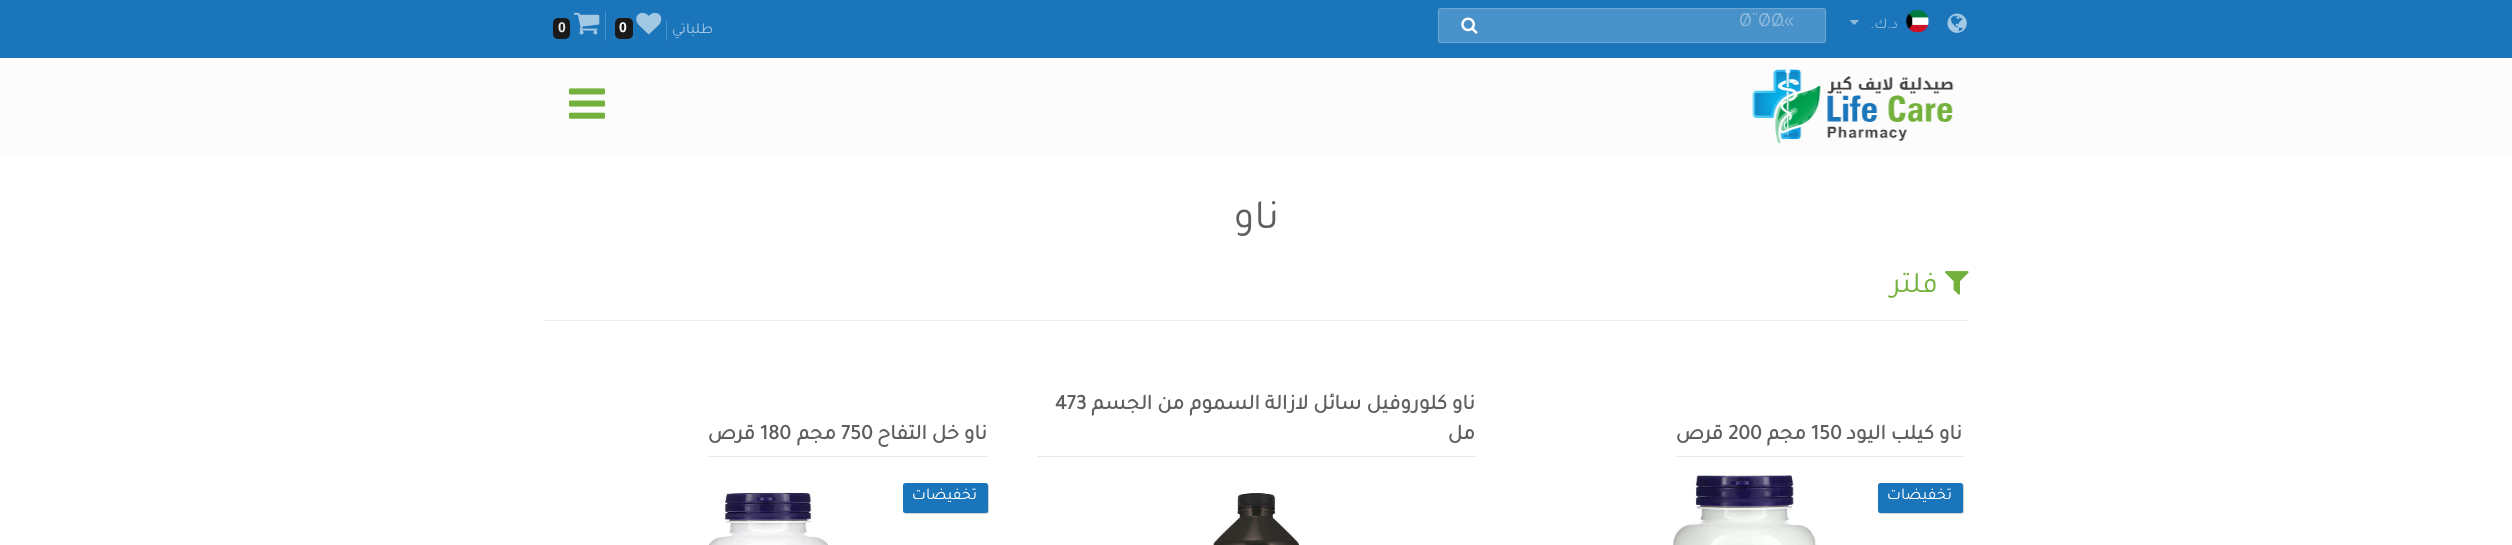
async function draw(canvas) {
  canvas.width = 2512;
  canvas.height = 545;
  const ctx = canvas.getContext('2d');
  ctx.miterLimit = 4;
  ctx.fontKerning = 'normal';
  function label(s, x, y, font, color) {
    ctx.font = font;
    ctx.fillStyle = color;
    ctx.fillText(s, x, y);
  }
  function rect(x, y, w, h, color) {
    ctx.fillStyle = color;
    ctx.fillRect(x, y, w, h);
  }
  function roundedRect(x, y, w, h, r, color) {
    ctx.fillStyle = color;
    ctx.beginPath();
    ctx.roundRect(x, y, w, h, r);
    ctx.fill();
  }
  async function image(src, x, y, w, h) {
    const img = new Image();
    img.src = src;
    await img.decode();
    ctx.drawImage(img, x, y, w, h);
  }

  rect(0, 0, 2512, 545, '#fff');
  rect(0, 58, 2512, 97, '#fcfcfc');
  rect(0, 0, 2512, 58, '#1b75bb');
  await image('assets/img1.png', 1947, 13, 20, 20);
  await image('assets/img2.png', 1906, 10, 24, 23);
  ctx.direction = 'rtl';
  label('د.ك.', 1898, 28, '15px Tajawal', '#8dbadd');
  await image('assets/img3.png', 1850, 20, 9, 5);
  roundedRect(1438, 8, 388, 35, 2.5, '#4991c9');
  ctx.beginPath();
  ctx.roundRect(1438.5, 8.5, 387, 34, 2);
  ctx.strokeStyle = '#ffffff33';
  ctx.stroke();
  ctx.direction = 'ltr';
  label('Ø¨ØØ«', 1739, 26, '20px Tajawal', '#8dbadd');
  label('...', 1770, 26, '20px Tajawal', '#9bc3e1');
  await image('assets/img4.png', 1461, 17, 17, 17);
  rect(666, 20, 1, 21, '#4991c9');
  ctx.direction = 'rtl';
  label('طلباتي', 713, 33, '15px Tajawal', '#a4c8e4');
  rect(605, 11, 1, 30, '#4991c9');
  await image('assets/img5.png', 636, 12, 26, 23);
  roundedRect(615, 18, 18, 21, 5, '#1a1a1a');
  ctx.direction = 'ltr';
  label('0', 619, 32, 'bold 14px Liberation Sans', '#fff');
  await image('assets/img6.png', 573, 12, 27, 23);
  roundedRect(553, 18, 17, 21, 5, '#1a1a1a');
  label('0', 558, 32, 'bold 14px Liberation Sans', '#e8e8e8');
  await image('assets/img7.png', 1752, 69, 202, 75);
  await image('assets/img8.png', 569, 88, 36, 31);
  ctx.direction = 'rtl';
  label('ناو', 1279, 228, '42px Tajawal', '#5f5f5f');
  rect(544, 320, 1425, 1, '#eee');
  await image('assets/img9.png', 1945, 271, 24, 24);
  label('فلتر', 1938, 292, '30px Tajawal', '#74b13c');
  rect(1038, 456, 437, 1, '#e6e8ec');
  label('ناو كلوروفيل سائل لازالة السموم من الجسم', 1475, 409, 'bold 21.25px Tajawal', '#5f5f5f');
  ctx.direction = 'ltr';
  label('473', 1055, 409, 'bold 21.25px Tajawal', '#5f5f5f');
  ctx.direction = 'rtl';
  label('مل', 1475, 439, 'bold 21.25px Tajawal', '#5f5f5f');
  await image('assets/img10.png', 1212, 493, 88, 52);
  rect(1676, 456, 287, 1, '#e6e8ec');
  label('ناو كيلب اليود', 1962, 439, 'bold 21.25px Tajawal', '#5f5f5f');
  ctx.direction = 'ltr';
  label('150', 1811, 439, 'bold 21.25px Tajawal', '#5f5f5f');
  ctx.direction = 'rtl';
  label('مجم', 1806, 439, 'bold 21.25px Tajawal', '#5f5f5f');
  ctx.direction = 'ltr';
  label('200', 1728, 439, 'bold 21.25px Tajawal', '#5f5f5f');
  ctx.direction = 'rtl';
  label('قرص', 1723, 439, 'bold 21.25px Tajawal', '#5f5f5f');
  ctx.fillStyle = '#0000002e';
  ctx.filter = 'blur(0.5px)';
  ctx.beginPath();
  ctx.roundRect(1879, 484, 85, 30, 2.5);
  ctx.fill();
  ctx.filter = 'none';
  roundedRect(1878, 483, 85, 30, 2.5, '#1b75bb');
  label('تخفيضات', 1952, 499, '16.25px Tajawal', '#fff');
  await image('assets/img11.png', 1671, 475, 146, 70);
  rect(708, 456, 280, 1, '#e6e8ec');
  label('ناو خل التفاح', 987, 439, 'bold 21.25px Tajawal', '#5f5f5f');
  ctx.direction = 'ltr';
  label('750', 841, 439, 'bold 21.25px Tajawal', '#5f5f5f');
  ctx.direction = 'rtl';
  label('مجم', 836, 439, 'bold 21.25px Tajawal', '#5f5f5f');
  ctx.direction = 'ltr';
  label('180', 760, 439, 'bold 21.25px Tajawal', '#5f5f5f');
  ctx.direction = 'rtl';
  label('قرص', 755, 439, 'bold 21.25px Tajawal', '#5f5f5f');
  ctx.fillStyle = '#0000002e';
  ctx.filter = 'blur(0.5px)';
  ctx.beginPath();
  ctx.roundRect(904, 484, 85, 30, 2.5);
  ctx.fill();
  ctx.filter = 'none';
  roundedRect(903, 483, 85, 30, 2.5, '#1b75bb');
  label('تخفيضات', 977, 499, '16.25px Tajawal', '#fff');
  await image('assets/img12.png', 709, 492, 120, 53);
}

draw(document.querySelector('canvas'));
